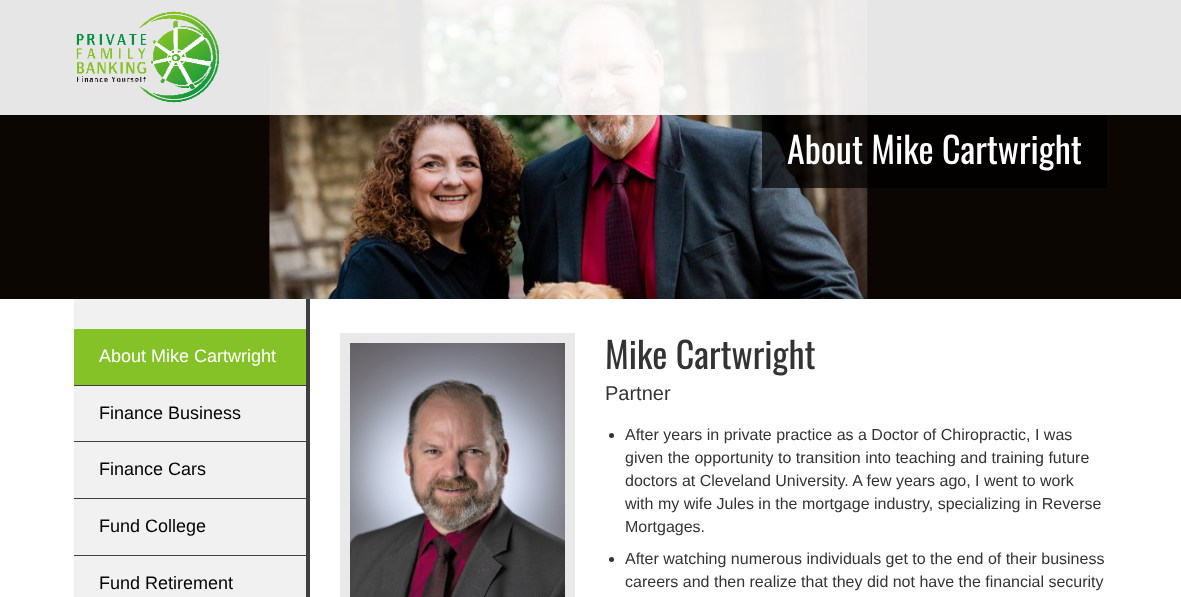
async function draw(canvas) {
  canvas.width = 1181;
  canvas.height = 597;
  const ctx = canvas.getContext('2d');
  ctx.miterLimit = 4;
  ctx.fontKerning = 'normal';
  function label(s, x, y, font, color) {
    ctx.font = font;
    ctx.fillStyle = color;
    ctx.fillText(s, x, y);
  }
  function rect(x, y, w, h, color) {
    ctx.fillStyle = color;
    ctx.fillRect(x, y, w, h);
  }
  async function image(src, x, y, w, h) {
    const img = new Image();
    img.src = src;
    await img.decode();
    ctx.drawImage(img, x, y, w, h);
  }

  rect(0, 0, 1181, 597, '#fff');
  await image('assets/img2.png', 0, 0, 1181, 299);
  rect(762, 114, 345, 74, '#000000b3');
  rect(0, 0, 1181, 115, '#ffffffe6');
  await image('assets/img1.png', 76, 11, 143, 92);
  label('About Mike Cartwright', 787, 164, '36px Oswald', '#fff');
  rect(74, 299, 232, 298, '#f1f1f1');
  rect(306, 299, 4, 298, '#3f3f3f');
  rect(74, 329, 232, 56, '#85c227');
  rect(74, 385, 232, 1, '#3f3f3f');
  label('About Mike Cartwright', 99, 362, '18px Liberation Sans', '#fff');
  rect(74, 441, 232, 1, '#3f3f3f');
  label('Finance Business', 99, 419, '18px Liberation Sans', '#000');
  rect(74, 498, 232, 1, '#3f3f3f');
  label('Finance Cars', 99, 475, '18px Liberation Sans', '#000');
  rect(74, 555, 232, 1, '#3f3f3f');
  label('Fund College', 99, 532, '18px Liberation Sans', '#000');
  label('Fund Retirement', 99, 589, '18px Liberation Sans', '#000');
  ctx.strokeStyle = '#e9e9e9';
  ctx.lineWidth = 10;
  ctx.strokeRect(345, 338, 225, 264);
  await image('assets/img3.png', 350, 343, 215, 254);
  label('Mike Cartwright', 605, 369, '36px Oswald', '#333');
  label('Partner', 605, 400, '20px Liberation Sans', '#333');
  ctx.beginPath();
  ctx.arc(611.5, 435.5, 2.5, 0, 2 * Math.PI);
  ctx.fill();
  label('After years in private practice as a Doctor of Chiropractic, I was', 625, 440, '16px Liberation Sans', '#333');
  label('given the opportunity to transition into teaching and training future', 625, 463, '16px Liberation Sans', '#333');
  label('doctors at Cleveland University. A few years ago, I went to work', 625, 486, '16px Liberation Sans', '#333');
  label('with my wife Jules in the mortgage industry, specializing in Reverse', 625, 509, '16px Liberation Sans', '#333');
  label('Mortgages.', 625, 532, '16px Liberation Sans', '#333');
  ctx.beginPath();
  ctx.arc(611.5, 559.5, 2.5, 0, 2 * Math.PI);
  ctx.fill();
  label('After watching numerous individuals get to the end of their business', 625, 564, '16px Liberation Sans', '#333');
  label('careers and then realize that they did not have the financial security', 625, 587, '16px Liberation Sans', '#333');
}

draw(document.querySelector('canvas'));
